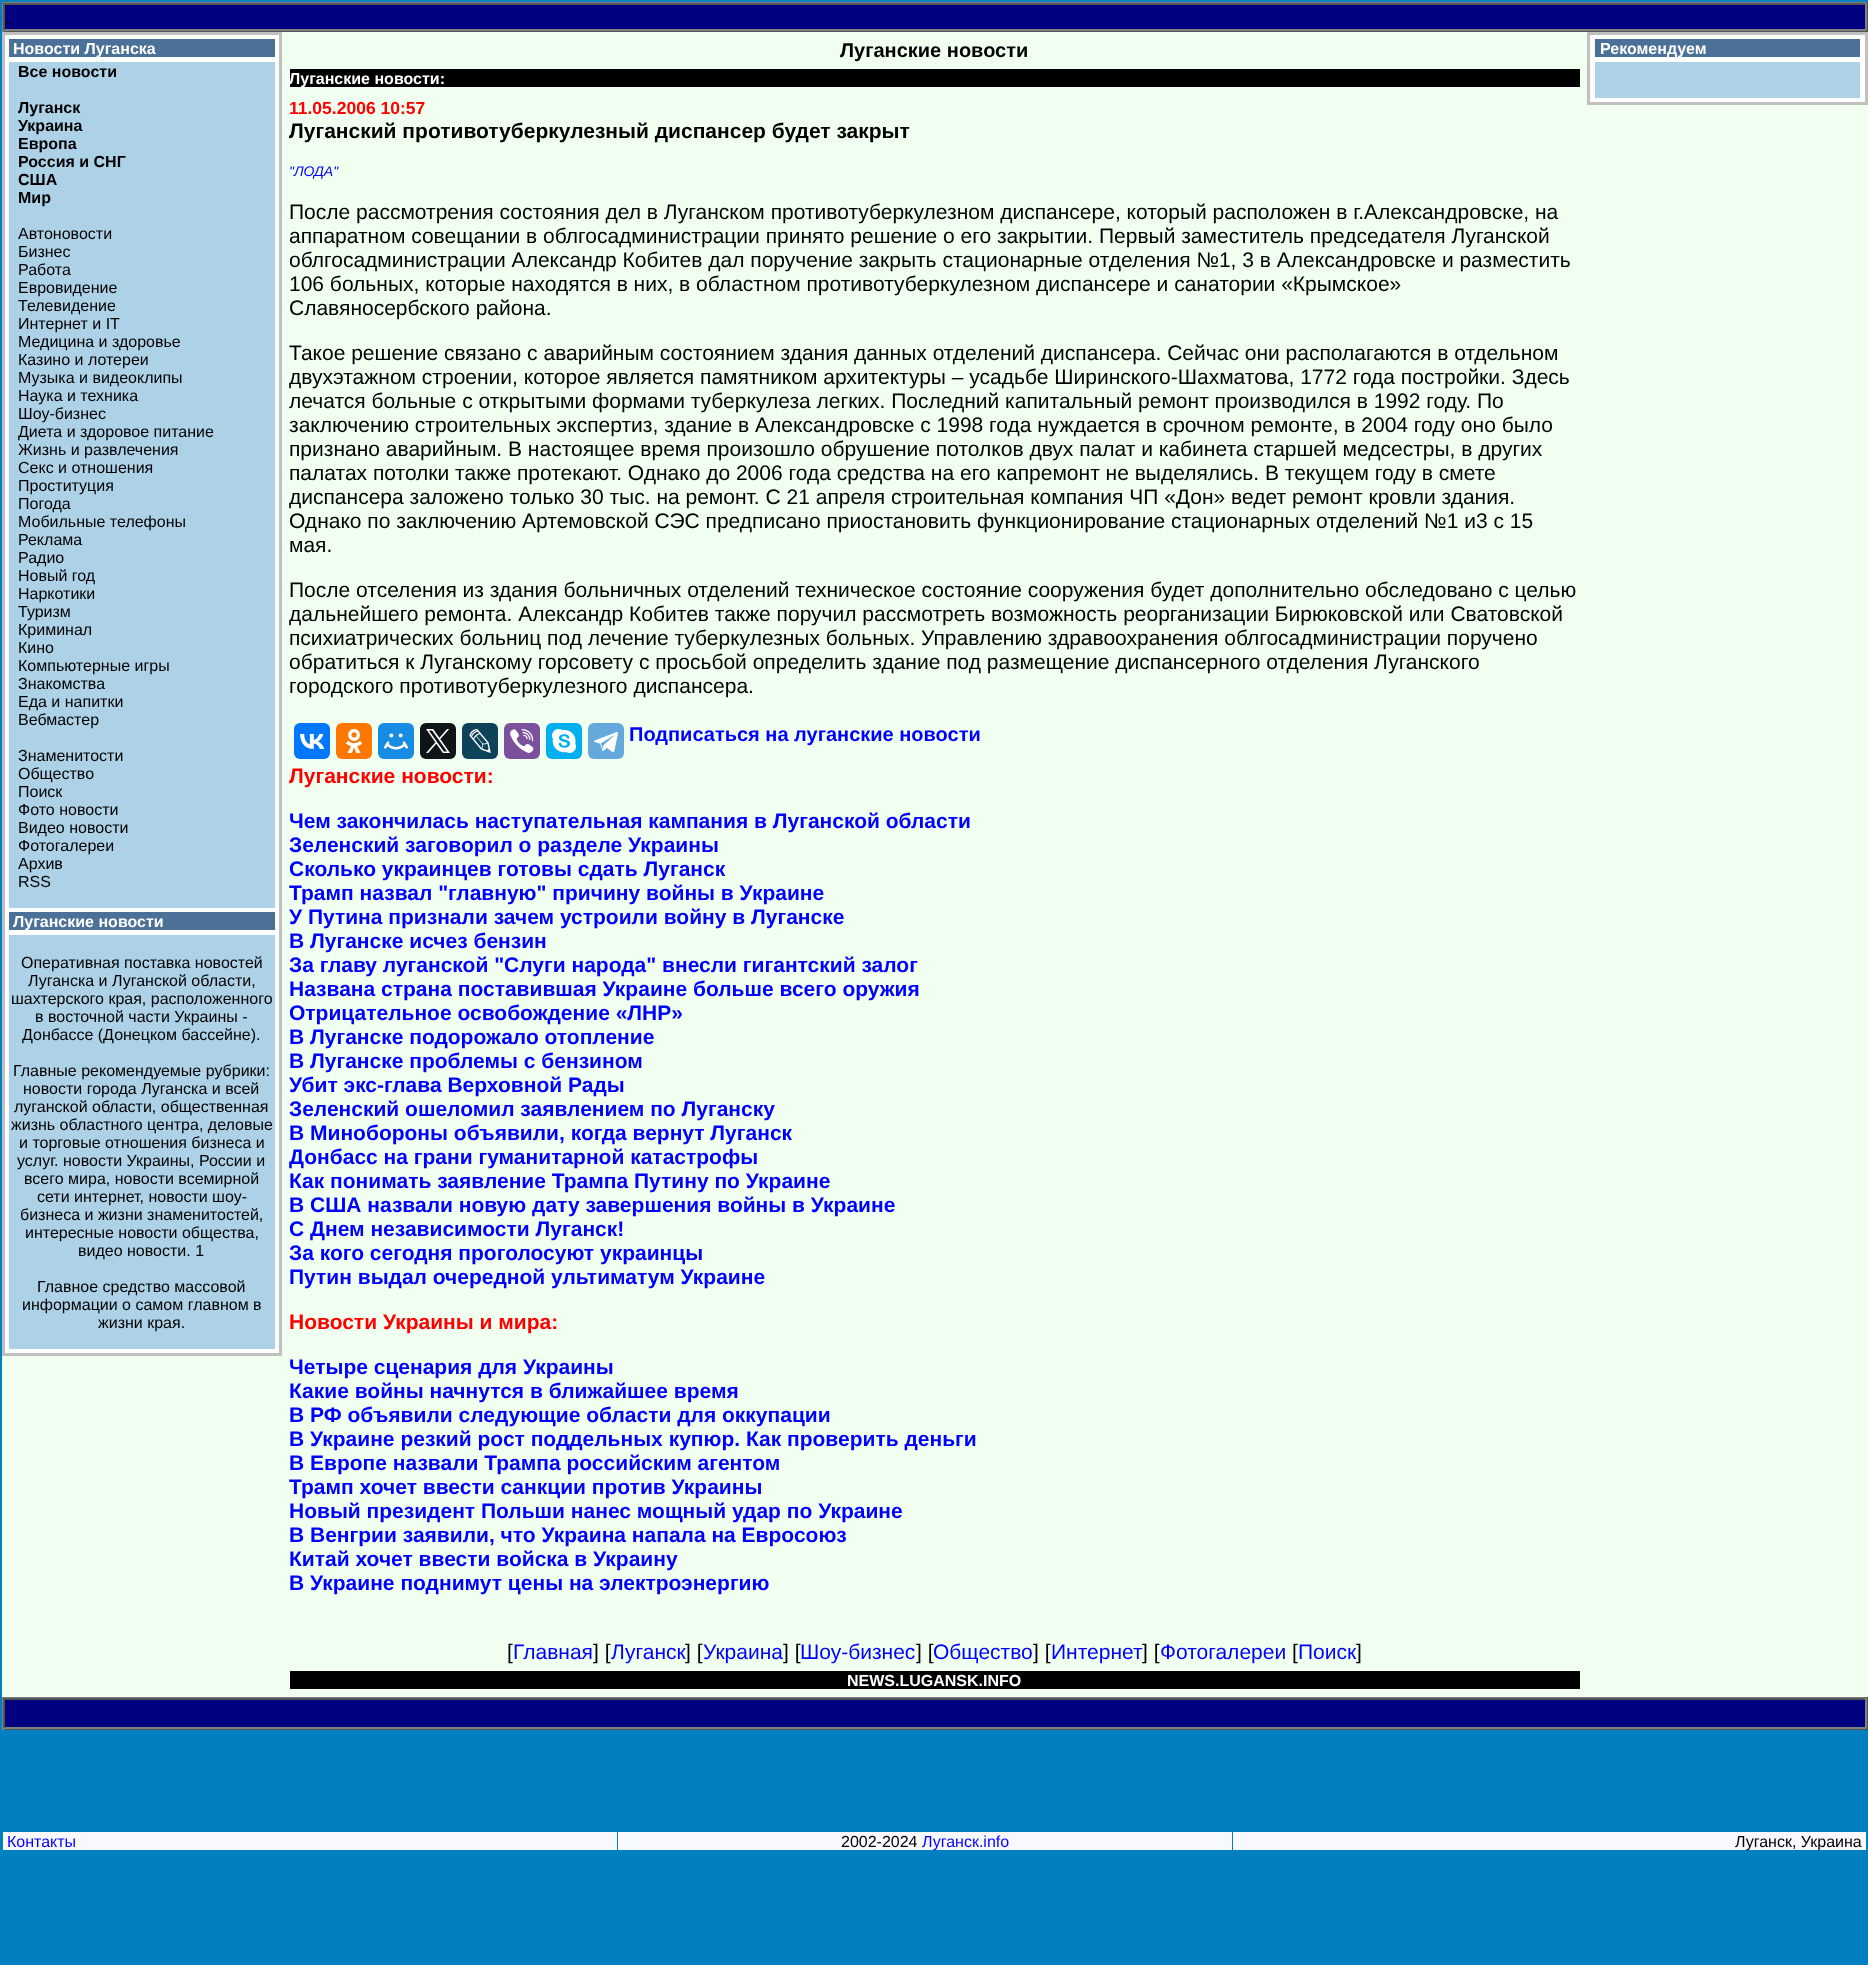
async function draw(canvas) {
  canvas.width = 1868;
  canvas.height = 1965;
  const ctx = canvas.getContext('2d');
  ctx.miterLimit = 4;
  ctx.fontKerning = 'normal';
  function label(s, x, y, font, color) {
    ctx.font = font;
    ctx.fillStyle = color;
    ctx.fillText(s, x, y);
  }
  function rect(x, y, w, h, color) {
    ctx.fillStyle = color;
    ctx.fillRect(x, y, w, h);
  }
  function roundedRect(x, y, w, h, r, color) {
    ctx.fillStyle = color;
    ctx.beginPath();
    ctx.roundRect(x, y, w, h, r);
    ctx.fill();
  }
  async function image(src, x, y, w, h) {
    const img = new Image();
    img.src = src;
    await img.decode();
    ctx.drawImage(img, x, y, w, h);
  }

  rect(0, 0, 1868, 1965, '#0080c0');
  rect(2, 32, 1866, 1665, '#f0fff0');
  rect(5, 5, 1860, 24, '#000080');
  rect(2, 2, 1866, 1, '#808080');
  rect(1866, 2, 2, 30, '#555');
  rect(2, 30, 1866, 2, '#555');
  rect(2, 2, 2, 30, '#808080');
  rect(3, 3, 1863, 2, '#555');
  rect(1865, 3, 2, 27, '#808080');
  rect(3, 29, 1863, 2, '#808080');
  rect(3, 3, 2, 27, '#555');
  label('.', 5, 24, '21px Liberation Sans', '#000');
  rect(2, 32, 280, 1324, '#c0c0c0');
  rect(5, 35, 274, 1318, '#fff');
  rect(9, 39, 266, 18, '#4c7199');
  label('Новости Луганска', 13, 54, 'bold 16px Liberation Sans', '#fff');
  rect(9, 62, 266, 846, '#add1e6');
  label('Все новости', 18, 77, 'bold 16px Liberation Sans', '#000');
  label('Луганск', 18, 113, 'bold 16px Liberation Sans', '#000');
  label('Украина', 18, 131, 'bold 16px Liberation Sans', '#000');
  label('Европа', 18, 149, 'bold 16px Liberation Sans', '#000');
  label('Россия и СНГ', 18, 167, 'bold 16px Liberation Sans', '#000');
  label('США', 18, 185, 'bold 16px Liberation Sans', '#000');
  label('Мир', 18, 203, 'bold 16px Liberation Sans', '#000');
  label('Автоновости', 18, 239, '16px Liberation Sans', '#000');
  label('Бизнес', 18, 257, '16px Liberation Sans', '#000');
  label('Работа', 18, 275, '16px Liberation Sans', '#000');
  label('Евровидение', 18, 293, '16px Liberation Sans', '#000');
  label('Телевидение', 18, 311, '16px Liberation Sans', '#000');
  label('Интернет и IT', 18, 329, '16px Liberation Sans', '#000');
  label('Медицина и здоровье', 18, 347, '16px Liberation Sans', '#000');
  label('Казино и лотереи', 18, 365, '16px Liberation Sans', '#000');
  label('Музыка и видеоклипы', 18, 383, '16px Liberation Sans', '#000');
  label('Наука и техника', 18, 401, '16px Liberation Sans', '#000');
  label('Шоу-бизнес', 18, 419, '16px Liberation Sans', '#000');
  label('Диета и здоровое питание', 18, 437, '16px Liberation Sans', '#000');
  label('Жизнь и развлечения', 18, 455, '16px Liberation Sans', '#000');
  label('Секс и отношения', 18, 473, '16px Liberation Sans', '#000');
  label('Проституция', 18, 491, '16px Liberation Sans', '#000');
  label('Погода', 18, 509, '16px Liberation Sans', '#000');
  label('Мобильные телефоны', 18, 527, '16px Liberation Sans', '#000');
  label('Реклама', 18, 545, '16px Liberation Sans', '#000');
  label('Радио', 18, 563, '16px Liberation Sans', '#000');
  label('Новый год', 18, 581, '16px Liberation Sans', '#000');
  label('Наркотики', 18, 599, '16px Liberation Sans', '#000');
  label('Туризм', 18, 617, '16px Liberation Sans', '#000');
  label('Криминал', 18, 635, '16px Liberation Sans', '#000');
  label('Кино', 18, 653, '16px Liberation Sans', '#000');
  label('Компьютерные игры', 18, 671, '16px Liberation Sans', '#000');
  label('Знакомства', 18, 689, '16px Liberation Sans', '#000');
  label('Еда и напитки', 18, 707, '16px Liberation Sans', '#000');
  label('Вебмастер', 18, 725, '16px Liberation Sans', '#000');
  label('Знаменитости', 18, 761, '16px Liberation Sans', '#000');
  label('Общество', 18, 779, '16px Liberation Sans', '#000');
  label('Поиск', 18, 797, '16px Liberation Sans', '#000');
  label('Фото новости', 18, 815, '16px Liberation Sans', '#000');
  label('Видео новости', 18, 833, '16px Liberation Sans', '#000');
  label('Фотогалереи', 18, 851, '16px Liberation Sans', '#000');
  label('Архив', 18, 869, '16px Liberation Sans', '#000');
  label('RSS', 18, 887, '16px Liberation Sans', '#000');
  rect(9, 912, 266, 18, '#4c7199');
  label('Луганские новости', 13, 927, 'bold 16px Liberation Sans', '#fff');
  rect(9, 935, 266, 414, '#add1e6');
  label('Оперативная поставка новостей', 21, 968, '16px Liberation Sans', '#000');
  label('Луганска и Луганской области,', 28, 986, '16px Liberation Sans', '#000');
  label('шахтерского края, расположенного', 11, 1004, '16px Liberation Sans', '#000');
  label('в восточной части Украины -', 35, 1022, '16px Liberation Sans', '#000');
  label('Донбассе (Донецком бассейне).', 22, 1040, '16px Liberation Sans', '#000');
  label('Главные рекомендуемые рубрики:', 13, 1076, '16px Liberation Sans', '#000');
  label('новости города Луганска и всей', 23, 1094, '16px Liberation Sans', '#000');
  label('луганской области, общественная', 14, 1112, '16px Liberation Sans', '#000');
  label('жизнь областного центра, деловые', 11, 1130, '16px Liberation Sans', '#000');
  label('и торговые отношения бизнеса и', 19, 1148, '16px Liberation Sans', '#000');
  label('услуг. новости Украины, России и', 17, 1166, '16px Liberation Sans', '#000');
  label('всего мира, новости всемирной', 24, 1184, '16px Liberation Sans', '#000');
  label('сети интернет, новости шоу-', 37, 1202, '16px Liberation Sans', '#000');
  label('бизнеса и жизни знаменитостей,', 20, 1220, '16px Liberation Sans', '#000');
  label('интересные новости общества,', 25, 1238, '16px Liberation Sans', '#000');
  label('видео новости. 1', 78, 1256, '16px Liberation Sans', '#000');
  label('Главное средство массовой', 37, 1292, '16px Liberation Sans', '#000');
  label('информации о самом главном в', 22, 1310, '16px Liberation Sans', '#000');
  label('жизни края.', 98, 1328, '16px Liberation Sans', '#000');
  label('Луганские новости', 840, 57, 'bold 20px Liberation Sans', '#000');
  rect(290, 69, 1290, 18, '#000');
  label('Луганские новости:', 289, 84, 'bold 16px Liberation Sans', '#fff');
  label('11.05.2006 10:57', 289, 114, 'bold 17.5px Liberation Sans', '#f00');
  label('Луганский противотуберкулезный диспансер будет закрыт', 289, 138, 'bold 21px Liberation Sans', '#000');
  label('"ЛОДА"', 289, 176, 'italic 14px Liberation Sans', '#00f');
  label('После рассмотрения состояния дел в Луганском противотуберкулезном диспансере, который расположен в г.Александровске, на', 289, 219, '21px Liberation Sans', '#000');
  label('аппаратном совещании в облгосадминистрации принято решение о его закрытии. Первый заместитель председателя Луганской', 289, 243, '21px Liberation Sans', '#000');
  label('облгосадминистрации Александр Кобитев дал поручение закрыть стационарные отделения №1, 3 в Александровске и разместить', 289, 267, '21px Liberation Sans', '#000');
  label('106 больных, которые находятся в них, в областном противотуберкулезном диспансере и санатории «Крымское»', 289, 291, '21px Liberation Sans', '#000');
  label('Славяносербского района.', 289, 315, '21px Liberation Sans', '#000');
  label('Такое решение связано с аварийным состоянием здания данных отделений диспансера. Сейчас они располагаются в отдельном', 289, 360, '21px Liberation Sans', '#000');
  label('двухэтажном строении, которое является памятником архитектуры – усадьбе Ширинского-Шахматова, 1772 года постройки. Здесь', 289, 384, '21px Liberation Sans', '#000');
  label('лечатся больные с открытыми формами туберкулеза легких. Последний капитальный ремонт производился в 1992 году. По', 289, 408, '21px Liberation Sans', '#000');
  label('заключению строительных экспертиз, здание в Александровске с 1998 года нуждается в срочном ремонте, в 2004 году оно было', 289, 432, '21px Liberation Sans', '#000');
  label('признано аварийным. В настоящее время произошло обрушение потолков двух палат и кабинета старшей медсестры, в других', 289, 456, '21px Liberation Sans', '#000');
  label('палатах потолки также протекают. Однако до 2006 года средства на его капремонт не выделялись. В текущем году в смете', 289, 480, '21px Liberation Sans', '#000');
  label('диспансера заложено только 30 тыс. на ремонт. С 21 апреля строительная компания ЧП «Дон» ведет ремонт кровли здания.', 289, 504, '21px Liberation Sans', '#000');
  label('Однако по заключению Артемовской СЭС предписано приостановить функционирование стационарных отделений №1 и3 с 15', 289, 528, '21px Liberation Sans', '#000');
  label('мая.', 289, 552, '21px Liberation Sans', '#000');
  label('После отселения из здания больничных отделений техническое состояние сооружения будет дополнительно обследовано с целью', 289, 597, '21px Liberation Sans', '#000');
  label('дальнейшего ремонта. Александр Кобитев также поручил рассмотреть возможность реорганизации Бирюковской или Сватовской', 289, 621, '21px Liberation Sans', '#000');
  label('психиатрических больниц под лечение туберкулезных больных. Управлению здравоохранения облгосадминистрации поручено', 289, 645, '21px Liberation Sans', '#000');
  label('обратиться к Луганскому горсовету с просьбой определить здание под размещение диспансерного отделения Луганского', 289, 669, '21px Liberation Sans', '#000');
  label('городского противотуберкулезного диспансера.', 289, 693, '21px Liberation Sans', '#000');
  roundedRect(294, 723, 36, 36, 6, '#07f');
  await image('assets/img1.png', 300, 733, 24, 16);
  roundedRect(336, 723, 36, 36, 6, '#f70');
  await image('assets/img2.png', 346, 729, 17, 24);
  roundedRect(378, 723, 36, 36, 6, '#168de2');
  await image('assets/img3.png', 384, 733, 24, 17);
  roundedRect(420, 723, 36, 36, 6, '#0f1419');
  await image('assets/img4.png', 426, 729, 24, 24);
  roundedRect(462, 723, 36, 36, 6, '#0d425a');
  await image('assets/img5.png', 469, 729, 22, 24);
  roundedRect(504, 723, 36, 36, 6, '#7b519d');
  await image('assets/img6.png', 510, 729, 24, 24);
  roundedRect(546, 723, 36, 36, 6, '#00aff0');
  await image('assets/img7.png', 552, 729, 24, 24);
  roundedRect(588, 723, 36, 36, 6, '#64a9dc');
  await image('assets/img8.png', 594, 732, 24, 21);
  label('Подписаться на луганские новости', 629, 741, 'bold 20px Liberation Sans', '#00f');
  label('Луганские новости:', 289, 783, 'bold 21px Liberation Sans', '#f00');
  label('Чем закончилась наступательная кампания в Луганской области', 289, 828, 'bold 21px Liberation Sans', '#00f');
  label('Зеленский заговорил о разделе Украины', 289, 852, 'bold 21px Liberation Sans', '#00f');
  label('Сколько украинцев готовы сдать Луганск', 289, 876, 'bold 21px Liberation Sans', '#00f');
  label('Трамп назвал "главную" причину войны в Украине', 289, 900, 'bold 21px Liberation Sans', '#00f');
  label('У Путина признали зачем устроили войну в Луганске', 289, 924, 'bold 21px Liberation Sans', '#00f');
  label('В Луганске исчез бензин', 289, 948, 'bold 21px Liberation Sans', '#00f');
  label('За главу луганской "Слуги народа" внесли гигантский залог', 289, 972, 'bold 21px Liberation Sans', '#00f');
  label('Названа страна поставившая Украине больше всего оружия', 289, 996, 'bold 21px Liberation Sans', '#00f');
  label('Отрицательное освобождение «ЛНР»', 289, 1020, 'bold 21px Liberation Sans', '#00f');
  label('В Луганске подорожало отопление', 289, 1044, 'bold 21px Liberation Sans', '#00f');
  label('В Луганске проблемы с бензином', 289, 1068, 'bold 21px Liberation Sans', '#00f');
  label('Убит экс-глава Верховной Рады', 289, 1092, 'bold 21px Liberation Sans', '#00f');
  label('Зеленский ошеломил заявлением по Луганску', 289, 1116, 'bold 21px Liberation Sans', '#00f');
  label('В Минобороны объявили, когда вернут Луганск', 289, 1140, 'bold 21px Liberation Sans', '#00f');
  label('Донбасс на грани гуманитарной катастрофы', 289, 1164, 'bold 21px Liberation Sans', '#00f');
  label('Как понимать заявление Трампа Путину по Украине', 289, 1188, 'bold 21px Liberation Sans', '#00f');
  label('В США назвали новую дату завершения войны в Украине', 289, 1212, 'bold 21px Liberation Sans', '#00f');
  label('С Днем независимости Луганск!', 289, 1236, 'bold 21px Liberation Sans', '#00f');
  label('За кого сегодня проголосуют украинцы', 289, 1260, 'bold 21px Liberation Sans', '#00f');
  label('Путин выдал очередной ультиматум Украине', 289, 1284, 'bold 21px Liberation Sans', '#00f');
  label('Новости Украины и мира:', 289, 1329, 'bold 21px Liberation Sans', '#f00');
  label('Четыре сценария для Украины', 289, 1374, 'bold 21px Liberation Sans', '#00f');
  label('Какие войны начнутся в ближайшее время', 289, 1398, 'bold 21px Liberation Sans', '#00f');
  label('В РФ объявили следующие области для оккупации', 289, 1422, 'bold 21px Liberation Sans', '#00f');
  label('В Украине резкий рост поддельных купюр. Как проверить деньги', 289, 1446, 'bold 21px Liberation Sans', '#00f');
  label('В Европе назвали Трампа российским агентом', 289, 1470, 'bold 21px Liberation Sans', '#00f');
  label('Трамп хочет ввести санкции против Украины', 289, 1494, 'bold 21px Liberation Sans', '#00f');
  label('Новый президент Польши нанес мощный удар по Украине', 289, 1518, 'bold 21px Liberation Sans', '#00f');
  label('В Венгрии заявили, что Украина напала на Евросоюз', 289, 1542, 'bold 21px Liberation Sans', '#00f');
  label('Китай хочет ввести войска в Украину', 289, 1566, 'bold 21px Liberation Sans', '#00f');
  label('В Украине поднимут цены на электроэнергию', 289, 1590, 'bold 21px Liberation Sans', '#00f');
  label('[', 507, 1659, '21px Liberation Sans', '#000');
  label('Главная', 513, 1659, '21px Liberation Sans', '#00f');
  label('] [', 593, 1659, '21px Liberation Sans', '#000');
  label('Луганск', 611, 1659, '21px Liberation Sans', '#00f');
  label('] [', 685, 1659, '21px Liberation Sans', '#000');
  label('Украина', 703, 1659, '21px Liberation Sans', '#00f');
  label('] [', 783, 1659, '21px Liberation Sans', '#000');
  label('Шоу-бизнес', 800, 1659, '21px Liberation Sans', '#00f');
  label('] [', 916, 1659, '21px Liberation Sans', '#000');
  label('Общество', 933, 1659, '21px Liberation Sans', '#00f');
  label('] [', 1033, 1659, '21px Liberation Sans', '#000');
  label('Интернет', 1051, 1659, '21px Liberation Sans', '#00f');
  label('] [', 1142, 1659, '21px Liberation Sans', '#000');
  label('Фотогалереи', 1160, 1659, '21px Liberation Sans', '#00f');
  label('[', 1292, 1659, '21px Liberation Sans', '#000');
  label('Поиск', 1298, 1659, '21px Liberation Sans', '#00f');
  label(']', 1356, 1659, '21px Liberation Sans', '#000');
  rect(290, 1671, 1290, 18, '#000');
  label('NEWS.LUGANSK.INFO', 847, 1686, 'bold 16px Liberation Sans', '#fff');
  rect(1587, 32, 281, 73, '#c0c0c0');
  rect(1590, 35, 275, 67, '#fff');
  rect(1595, 39, 265, 18, '#4c7199');
  label('Рекомендуем', 1600, 54, 'bold 16px Liberation Sans', '#fff');
  rect(1595, 62, 265, 36, '#add1e6');
  rect(5, 1700, 1860, 27, '#000080');
  rect(2, 1697, 1866, 1, '#808080');
  rect(1866, 1697, 2, 33, '#555');
  rect(2, 1728, 1866, 2, '#555');
  rect(2, 1697, 2, 33, '#808080');
  rect(3, 1698, 1863, 2, '#555');
  rect(1865, 1698, 2, 30, '#808080');
  rect(3, 1727, 1863, 2, '#808080');
  rect(3, 1698, 2, 30, '#555');
  rect(3, 1832, 614, 18, '#f8f8ff');
  label('Контакты', 7, 1847, '16px Liberation Sans', '#00f');
  rect(618, 1832, 614, 18, '#f8f8ff');
  label('2002-2024', 841, 1847, '16px Liberation Sans', '#000');
  label('Луганск.info', 922, 1847, '16px Liberation Sans', '#00f');
  rect(1233, 1832, 633, 18, '#f8f8ff');
  label('Луганск, Украина', 1735, 1847, '16px Liberation Sans', '#000');
}

draw(document.querySelector('canvas'));
